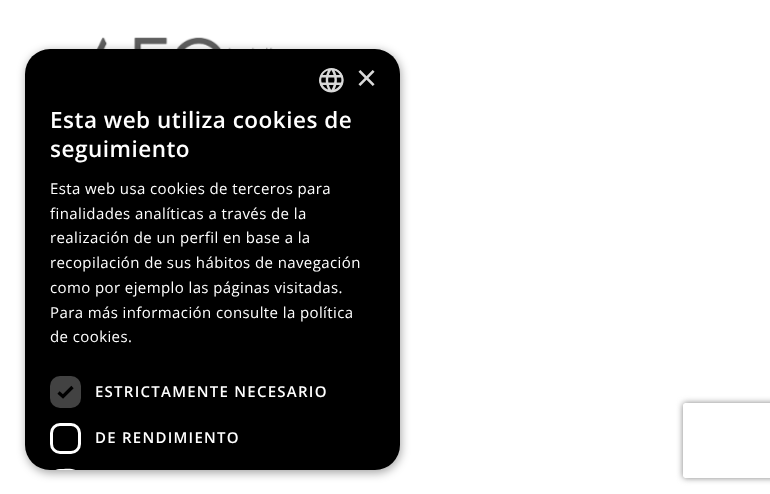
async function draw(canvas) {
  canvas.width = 770;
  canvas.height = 494;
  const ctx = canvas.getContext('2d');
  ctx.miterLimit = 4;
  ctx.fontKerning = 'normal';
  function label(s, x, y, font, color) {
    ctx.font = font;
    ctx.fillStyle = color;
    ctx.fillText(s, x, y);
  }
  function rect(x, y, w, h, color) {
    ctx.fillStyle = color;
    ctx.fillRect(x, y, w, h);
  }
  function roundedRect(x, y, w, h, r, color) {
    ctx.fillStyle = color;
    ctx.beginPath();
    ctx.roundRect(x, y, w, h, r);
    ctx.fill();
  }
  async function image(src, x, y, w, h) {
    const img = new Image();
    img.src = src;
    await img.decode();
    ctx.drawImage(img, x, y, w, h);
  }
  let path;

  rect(0, 0, 770, 494, '#fff');
  await image('assets/img1.png', 77, 37, 198, 12);
  ctx.fillStyle = '#00000059';
  ctx.filter = 'blur(5px)';
  ctx.beginPath();
  ctx.roundRect(26, 51, 375, 422, 25);
  ctx.fill();
  ctx.filter = 'none';
  roundedRect(25, 49, 375, 421, 25, '#000');
  await image('assets/img2.png', 319, 68, 25, 25);
  label('×', 356, 90, '36px Liberation Sans', '#d9d9d9');
  ctx.letterSpacing = '0.5px';
  label('Esta web utiliza cookies de', 50, 128, '600 22.5px Open Sans', '#fff');
  label('seguimiento', 50, 157, '600 22.5px Open Sans', '#fff');
  ctx.letterSpacing = '0.4px';
  label('Esta web usa cookies de terceros para', 50, 194, '15px Open Sans', '#fff');
  label('finalidades analíticas a través de la', 50, 219, '15px Open Sans', '#fff');
  label('realización de un perfil en base a la', 50, 243, '15px Open Sans', '#fff');
  label('recopilación de sus hábitos de navegación', 50, 268, '15px Open Sans', '#fff');
  label('como por ejemplo las páginas visitadas.', 50, 293, '15px Open Sans', '#fff');
  label('Para más información consulte la política', 50, 318, '15px Open Sans', '#fff');
  label('de cookies.', 50, 342, '15px Open Sans', '#fff');
  roundedRect(50, 376, 31, 32, 10, '#424242');
  path = new Path2D('M58.5 392.5L63 396.5L72.5 387');
  ctx.strokeStyle = '#000';
  ctx.lineWidth = 3.3;
  ctx.stroke(path);
  ctx.letterSpacing = '1.25px';
  label('ESTRICTAMENTE NECESARIO', 95, 397, '600 15px Open Sans', '#fff');
  ctx.beginPath();
  ctx.roundRect(51.5, 424.5, 28, 28, 8.5);
  ctx.strokeStyle = '#fff';
  ctx.lineWidth = 3;
  ctx.stroke();
  label('DE RENDIMIENTO', 95, 443, '600 15px Open Sans', '#fff');
  path = new Path2D('M60 469C64 469 71.5 468 75.5 470H55.5C57 469.5 58.5 469 60 469Z');
  ctx.fill(path);
  ctx.save();
  path = new Path2D('M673 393H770V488H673ZM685.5 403H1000.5C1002 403 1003 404 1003 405.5V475.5C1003 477 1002 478 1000.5 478H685.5C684 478 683 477 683 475.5V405.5C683 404 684 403 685.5 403Z');
  ctx.clip(path, 'evenodd');
  ctx.fillStyle = '#808080';
  ctx.filter = 'blur(3px)';
  ctx.beginPath();
  ctx.roundRect(683, 403, 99, 75, 2.5);
  ctx.fill();
  ctx.filter = 'none';
  ctx.restore();
}

draw(document.querySelector('canvas'));
